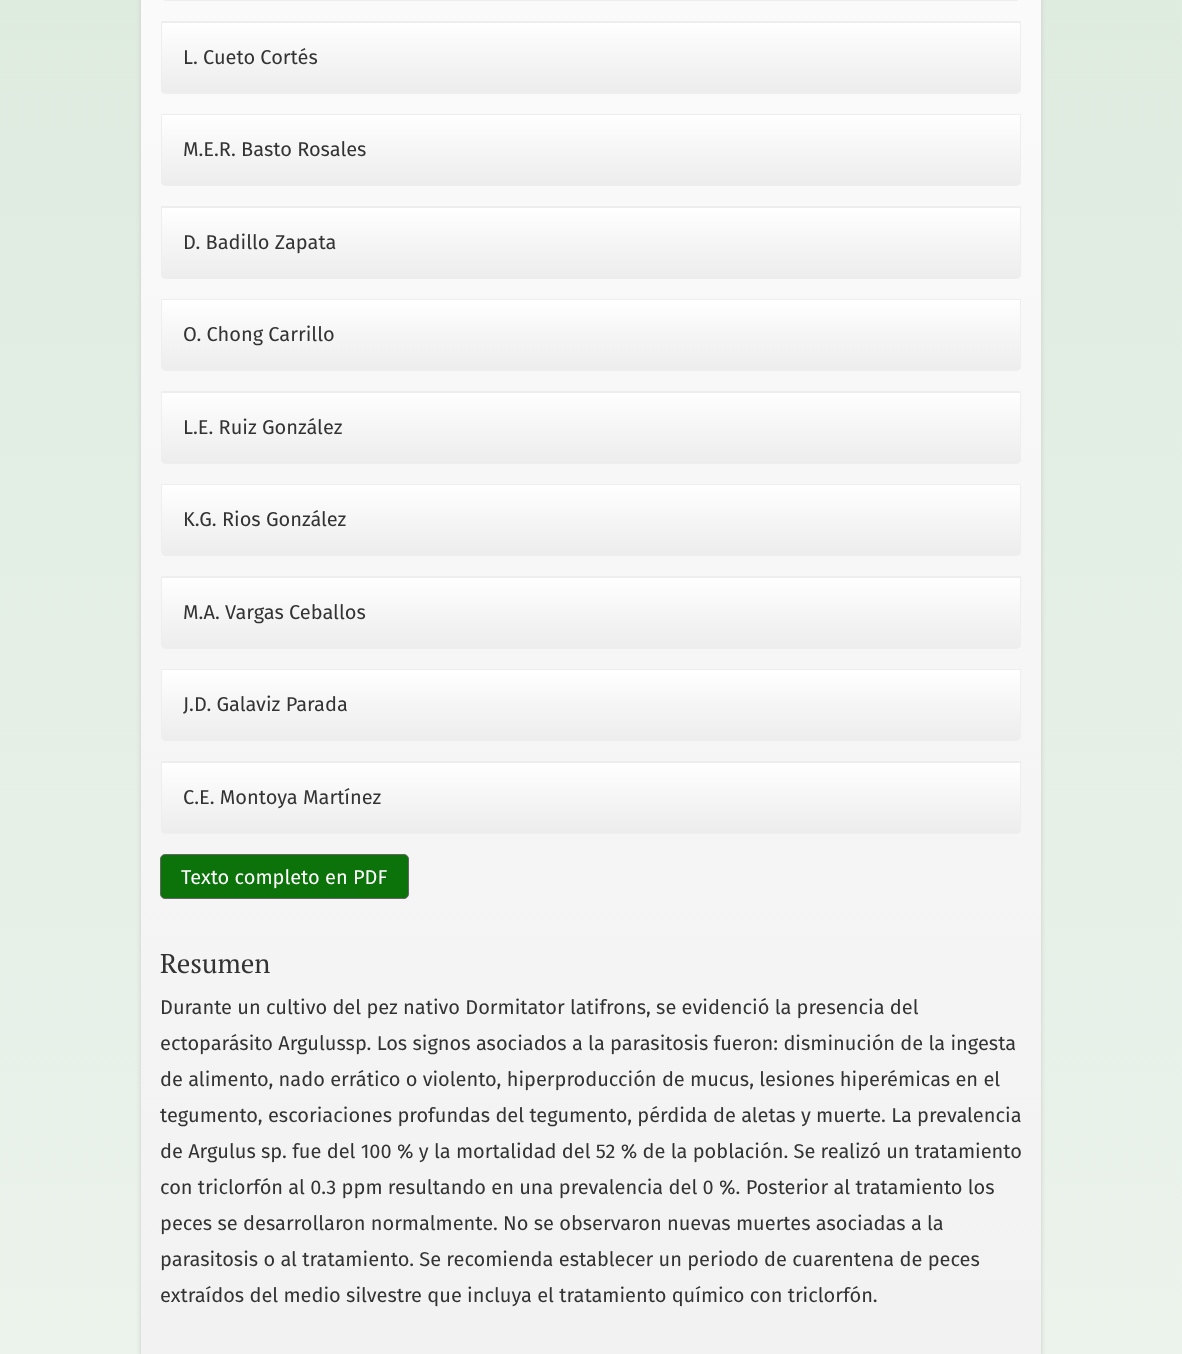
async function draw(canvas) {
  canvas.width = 1182;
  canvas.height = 1354;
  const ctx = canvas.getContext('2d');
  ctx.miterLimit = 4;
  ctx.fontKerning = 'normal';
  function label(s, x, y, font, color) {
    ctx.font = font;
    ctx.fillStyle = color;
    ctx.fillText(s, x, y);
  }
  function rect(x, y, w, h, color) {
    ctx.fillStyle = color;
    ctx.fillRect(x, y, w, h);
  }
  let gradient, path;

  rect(0, 0, 1182, 1354, '#fff');
  gradient = ctx.createLinearGradient(591, -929, 591, 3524);
  gradient.addColorStop(0, '#d6e6d7');
  gradient.addColorStop(1, '#fff');
  ctx.fillStyle = gradient;
  ctx.fillRect(0, 0, 1182, 1354);
  ctx.fillStyle = '#ccc';
  ctx.filter = 'blur(2.5px)';
  ctx.beginPath();
  ctx.rect(141, -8, 900, 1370);
  ctx.fill();
  ctx.filter = 'none';
  gradient = ctx.createLinearGradient(591, -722, 591, 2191);
  gradient.addColorStop(0, '#fff');
  gradient.addColorStop(0.47, '#f6f6f6');
  gradient.addColorStop(1, '#ededed');
  ctx.fillStyle = gradient;
  ctx.fillRect(141, 0, 900, 1354);
  path = new Path2D('M161.5-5.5H1020.5V-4C1020.5-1.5 1018.5 .5 1016 .5H166C163.5 .5 161.5-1.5 161.5-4Z');
  ctx.strokeStyle = '#eee';
  ctx.stroke(path);
  gradient = ctx.createLinearGradient(591, -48, 591, 23);
  gradient.addColorStop(0, '#fff');
  gradient.addColorStop(0.47, '#f6f6f6');
  gradient.addColorStop(1, '#ededed');
  ctx.fillStyle = gradient;
  ctx.fillRect(161, 22, 860, 1);
  ctx.save();
  ctx.beginPath();
  ctx.roundRect(161, 21, 860, 73, [0, 0, 5, 5]);
  ctx.clip();
  gradient = ctx.createLinearGradient(591, 22, 591, 93);
  gradient.addColorStop(0, '#fff');
  gradient.addColorStop(0.47, '#f6f6f6');
  gradient.addColorStop(1, '#ededed');
  ctx.fillStyle = gradient;
  ctx.fillRect(161, 23, 860, 70);
  ctx.restore();
  ctx.beginPath();
  ctx.roundRect(161.5, 21.5, 859, 72, [0, 0, 4.5, 4.5]);
  ctx.stroke();
  label('L. Cueto Cortés', 183, 64, '20px Fira Sans', '#333');
  ctx.save();
  ctx.beginPath();
  ctx.roundRect(161, 114, 860, 72, [0, 0, 5, 5]);
  ctx.clip();
  gradient = ctx.createLinearGradient(591, 115, 591, 185);
  gradient.addColorStop(0, '#fff');
  gradient.addColorStop(0.47, '#f6f6f6');
  gradient.addColorStop(1, '#ededed');
  ctx.fillStyle = gradient;
  ctx.fillRect(161, 115, 860, 70);
  ctx.restore();
  ctx.beginPath();
  ctx.roundRect(161.5, 114.5, 859, 71, [0, 0, 4.5, 4.5]);
  ctx.stroke();
  label('M.E.R. Basto Rosales', 183, 156, '20px Fira Sans', '#333');
  gradient = ctx.createLinearGradient(591, 137, 591, 208);
  gradient.addColorStop(0, '#fff');
  gradient.addColorStop(0.47, '#f6f6f6');
  gradient.addColorStop(1, '#ededed');
  ctx.fillStyle = gradient;
  ctx.fillRect(161, 207, 860, 1);
  ctx.save();
  ctx.beginPath();
  ctx.roundRect(161, 206, 860, 73, [0, 0, 5, 5]);
  ctx.clip();
  gradient = ctx.createLinearGradient(591, 207, 591, 278);
  gradient.addColorStop(0, '#fff');
  gradient.addColorStop(0.47, '#f6f6f6');
  gradient.addColorStop(1, '#ededed');
  ctx.fillStyle = gradient;
  ctx.fillRect(161, 208, 860, 70);
  ctx.restore();
  ctx.beginPath();
  ctx.roundRect(161.5, 206.5, 859, 72, [0, 0, 4.5, 4.5]);
  ctx.stroke();
  label('D. Badillo Zapata', 183, 249, '20px Fira Sans', '#333');
  ctx.save();
  ctx.beginPath();
  ctx.roundRect(161, 299, 860, 72, [0, 0, 5, 5]);
  ctx.clip();
  gradient = ctx.createLinearGradient(591, 300, 591, 370);
  gradient.addColorStop(0, '#fff');
  gradient.addColorStop(0.47, '#f6f6f6');
  gradient.addColorStop(1, '#ededed');
  ctx.fillStyle = gradient;
  ctx.fillRect(161, 300, 860, 70);
  ctx.restore();
  ctx.beginPath();
  ctx.roundRect(161.5, 299.5, 859, 71, [0, 0, 4.5, 4.5]);
  ctx.stroke();
  label('O. Chong Carrillo', 183, 341, '20px Fira Sans', '#333');
  gradient = ctx.createLinearGradient(591, 322, 591, 393);
  gradient.addColorStop(0, '#fff');
  gradient.addColorStop(0.47, '#f6f6f6');
  gradient.addColorStop(1, '#ededed');
  ctx.fillStyle = gradient;
  ctx.fillRect(161, 392, 860, 1);
  ctx.save();
  ctx.beginPath();
  ctx.roundRect(161, 391, 860, 73, [0, 0, 5, 5]);
  ctx.clip();
  gradient = ctx.createLinearGradient(591, 392, 591, 463);
  gradient.addColorStop(0, '#fff');
  gradient.addColorStop(0.47, '#f6f6f6');
  gradient.addColorStop(1, '#ededed');
  ctx.fillStyle = gradient;
  ctx.fillRect(161, 393, 860, 70);
  ctx.restore();
  ctx.beginPath();
  ctx.roundRect(161.5, 391.5, 859, 72, [0, 0, 4.5, 4.5]);
  ctx.stroke();
  label('L.E. Ruiz González', 183, 434, '20px Fira Sans', '#333');
  ctx.save();
  ctx.beginPath();
  ctx.roundRect(161, 484, 860, 72, [0, 0, 5, 5]);
  ctx.clip();
  gradient = ctx.createLinearGradient(591, 485, 591, 555);
  gradient.addColorStop(0, '#fff');
  gradient.addColorStop(0.47, '#f6f6f6');
  gradient.addColorStop(1, '#ededed');
  ctx.fillStyle = gradient;
  ctx.fillRect(161, 485, 860, 70);
  ctx.restore();
  ctx.beginPath();
  ctx.roundRect(161.5, 484.5, 859, 71, [0, 0, 4.5, 4.5]);
  ctx.stroke();
  label('K.G. Rios González', 183, 526, '20px Fira Sans', '#333');
  gradient = ctx.createLinearGradient(591, 507, 591, 578);
  gradient.addColorStop(0, '#fff');
  gradient.addColorStop(0.47, '#f6f6f6');
  gradient.addColorStop(1, '#ededed');
  ctx.fillStyle = gradient;
  ctx.fillRect(161, 577, 860, 1);
  ctx.save();
  ctx.beginPath();
  ctx.roundRect(161, 576, 860, 73, [0, 0, 5, 5]);
  ctx.clip();
  gradient = ctx.createLinearGradient(591, 577, 591, 648);
  gradient.addColorStop(0, '#fff');
  gradient.addColorStop(0.47, '#f6f6f6');
  gradient.addColorStop(1, '#ededed');
  ctx.fillStyle = gradient;
  ctx.fillRect(161, 578, 860, 70);
  ctx.restore();
  ctx.beginPath();
  ctx.roundRect(161.5, 576.5, 859, 72, [0, 0, 4.5, 4.5]);
  ctx.stroke();
  label('M.A. Vargas Ceballos', 183, 619, '20px Fira Sans', '#333');
  ctx.save();
  ctx.beginPath();
  ctx.roundRect(161, 669, 860, 72, [0, 0, 5, 5]);
  ctx.clip();
  gradient = ctx.createLinearGradient(591, 670, 591, 740);
  gradient.addColorStop(0, '#fff');
  gradient.addColorStop(0.47, '#f6f6f6');
  gradient.addColorStop(1, '#ededed');
  ctx.fillStyle = gradient;
  ctx.fillRect(161, 670, 860, 70);
  ctx.restore();
  ctx.beginPath();
  ctx.roundRect(161.5, 669.5, 859, 71, [0, 0, 4.5, 4.5]);
  ctx.stroke();
  label('J.D. Galaviz Parada', 183, 711, '20px Fira Sans', '#333');
  gradient = ctx.createLinearGradient(591, 693, 591, 763);
  gradient.addColorStop(0, '#fff');
  gradient.addColorStop(0.47, '#f6f6f6');
  gradient.addColorStop(1, '#ededed');
  ctx.fillStyle = gradient;
  ctx.fillRect(161, 762, 860, 1);
  ctx.save();
  ctx.beginPath();
  ctx.roundRect(161, 761, 860, 73, [0, 0, 5, 5]);
  ctx.clip();
  gradient = ctx.createLinearGradient(591, 763, 591, 833);
  gradient.addColorStop(0, '#fff');
  gradient.addColorStop(0.47, '#f6f6f6');
  gradient.addColorStop(1, '#ededed');
  ctx.fillStyle = gradient;
  ctx.fillRect(161, 763, 860, 70);
  ctx.restore();
  ctx.beginPath();
  ctx.roundRect(161.5, 761.5, 859, 72, [0, 0, 4.5, 4.5]);
  ctx.stroke();
  label('C.E. Montoya Martínez', 183, 804, '20px Fira Sans', '#333');
  ctx.fillStyle = '#0c730a';
  ctx.beginPath();
  ctx.roundRect(160.5, 854.5, 248, 44, 4.5);
  ctx.fill();
  ctx.strokeStyle = '#666';
  ctx.stroke();
  label('Texto completo en PDF', 181, 884, '20px Fira Sans', '#fff');
  label('Resumen', 160, 973, '27px PT Serif', '#333');
  label('Durante un cultivo del pez nativo Dormitator latifrons, se evidenció la presencia del', 160, 1014, '20px Fira Sans', '#333');
  label('ectoparásito Argulussp. Los signos asociados a la parasitosis fueron: disminución de la ingesta', 160, 1050, '20px Fira Sans', '#333');
  label('de alimento, nado errático o violento, hiperproducción de mucus, lesiones hiperémicas en el', 160, 1086, '20px Fira Sans', '#333');
  label('tegumento, escoriaciones profundas del tegumento, pérdida de aletas y muerte. La prevalencia', 160, 1122, '20px Fira Sans', '#333');
  label('de Argulus sp. fue del 100 % y la mortalidad del 52 % de la población. Se realizó un tratamiento', 160, 1158, '20px Fira Sans', '#333');
  label('con triclorfón al 0.3 ppm resultando en una prevalencia del 0 %. Posterior al tratamiento los', 160, 1194, '20px Fira Sans', '#333');
  label('peces se desarrollaron normalmente. No se observaron nuevas muertes asociadas a la', 160, 1230, '20px Fira Sans', '#333');
  label('parasitosis o al tratamiento. Se recomienda establecer un periodo de cuarentena de peces', 160, 1266, '20px Fira Sans', '#333');
  label('extraídos del medio silvestre que incluya el tratamiento químico con triclorfón.', 160, 1302, '20px Fira Sans', '#333');
}

draw(document.querySelector('canvas'));
